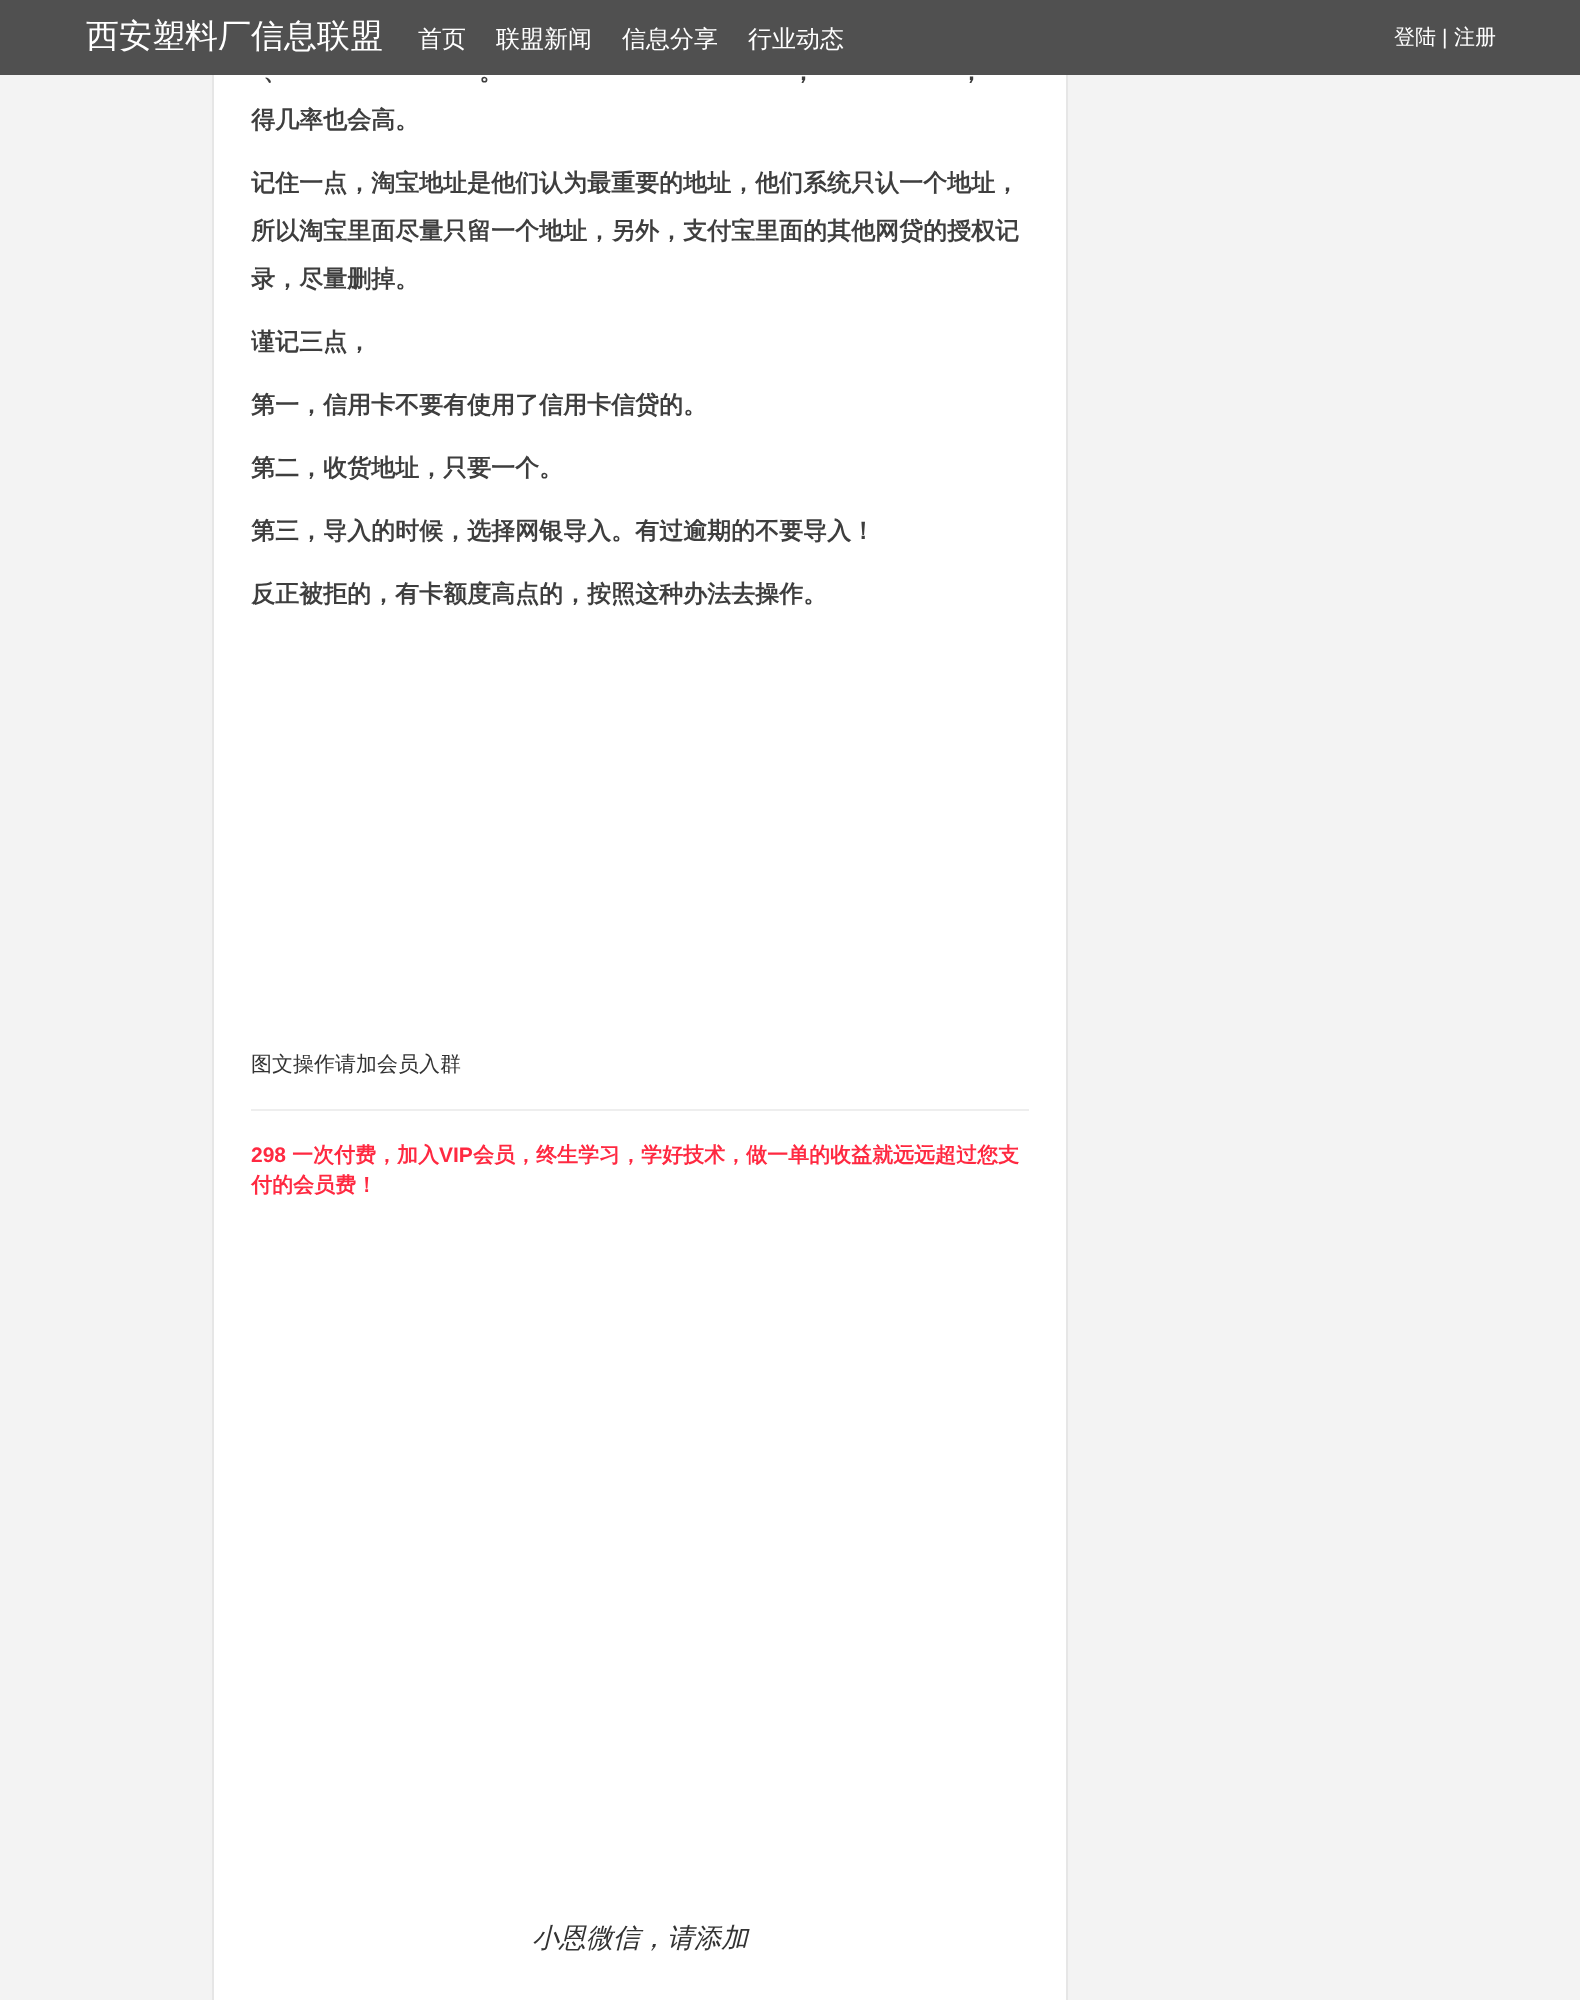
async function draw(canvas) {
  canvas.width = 1580;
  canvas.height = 2000;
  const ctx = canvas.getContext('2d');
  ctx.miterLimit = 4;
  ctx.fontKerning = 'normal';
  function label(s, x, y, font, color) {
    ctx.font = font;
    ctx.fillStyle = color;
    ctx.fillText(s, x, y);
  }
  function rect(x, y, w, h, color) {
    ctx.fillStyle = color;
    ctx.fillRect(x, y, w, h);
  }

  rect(0, 0, 1580, 2000, '#f3f3f3');
  rect(214, 75, 852, 1925, '#fff');
  ctx.strokeStyle = '#e6e6e6';
  ctx.lineWidth = 2;
  ctx.strokeRect(213, -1, 854, 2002);
  rect(0, 0, 1580, 75, '#505050');
  label('西安塑料厂信息联盟', 86, 47, '500 33px WenQuanYi Zen Hei', '#fff');
  label('首页', 418, 47, '500 24px WenQuanYi Zen Hei', '#fff');
  label('联盟新闻', 496, 47, '500 24px WenQuanYi Zen Hei', '#fff');
  label('信息分享', 622, 47, '500 24px WenQuanYi Zen Hei', '#fff');
  label('行业动态', 748, 47, '500 24px WenQuanYi Zen Hei', '#fff');
  label('登陆', 1394, 44, '500 21px WenQuanYi Zen Hei', '#fff');
  label('|', 1442, 44, '21px Liberation Sans', '#fff');
  label('注册', 1454, 44, '500 21px WenQuanYi Zen Hei', '#fff');
  label('、', 263, 80, 'bold 24px WenQuanYi Zen Hei', '#3e3e3e');
  label('。', 479, 80, 'bold 24px WenQuanYi Zen Hei', '#3e3e3e');
  label('，', 791, 80, 'bold 24px WenQuanYi Zen Hei', '#3e3e3e');
  label('，', 959, 80, 'bold 24px WenQuanYi Zen Hei', '#3e3e3e');
  label('得几率也会高。', 251, 128, 'bold 24px WenQuanYi Zen Hei', '#3e3e3e');
  label('记住一点，淘宝地址是他们认为最重要的地址，他们系统只认一个地址，', 251, 191, 'bold 24px WenQuanYi Zen Hei', '#3e3e3e');
  label('所以淘宝里面尽量只留一个地址，另外，支付宝里面的其他网贷的授权记', 251, 239, 'bold 24px WenQuanYi Zen Hei', '#3e3e3e');
  label('录，尽量删掉。', 251, 287, 'bold 24px WenQuanYi Zen Hei', '#3e3e3e');
  label('谨记三点，', 251, 350, 'bold 24px WenQuanYi Zen Hei', '#3e3e3e');
  label('第一，信用卡不要有使用了信用卡信贷的。', 251, 413, 'bold 24px WenQuanYi Zen Hei', '#3e3e3e');
  label('第二，收货地址，只要一个。', 251, 476, 'bold 24px WenQuanYi Zen Hei', '#3e3e3e');
  label('第三，导入的时候，选择网银导入。有过逾期的不要导入！', 251, 539, 'bold 24px WenQuanYi Zen Hei', '#3e3e3e');
  label('反正被拒的，有卡额度高点的，按照这种办法去操作。', 251, 602, 'bold 24px WenQuanYi Zen Hei', '#3e3e3e');
  label('图文操作请加会员入群', 251, 1071, '500 21px WenQuanYi Zen Hei', '#333');
  rect(251, 1109, 778, 2, '#eee');
  label('298', 251, 1162, 'bold 21px Liberation Sans', '#ff2941');
  label('一次付费，加入', 292, 1162, 'bold 21px WenQuanYi Zen Hei', '#ff2941');
  label('VIP', 439, 1162, 'bold 21px Liberation Sans', '#ff2941');
  label('会员，终生学习，学好技术，做一单的收益就远远超过您支', 473, 1162, 'bold 21px WenQuanYi Zen Hei', '#ff2941');
  label('付的会员费！', 251, 1192, 'bold 21px WenQuanYi Zen Hei', '#ff2941');
  label('小恩微信，请添加', 532, 1947, 'italic 500 27px WenQuanYi Zen Hei', '#333');
}

draw(document.querySelector('canvas'));
